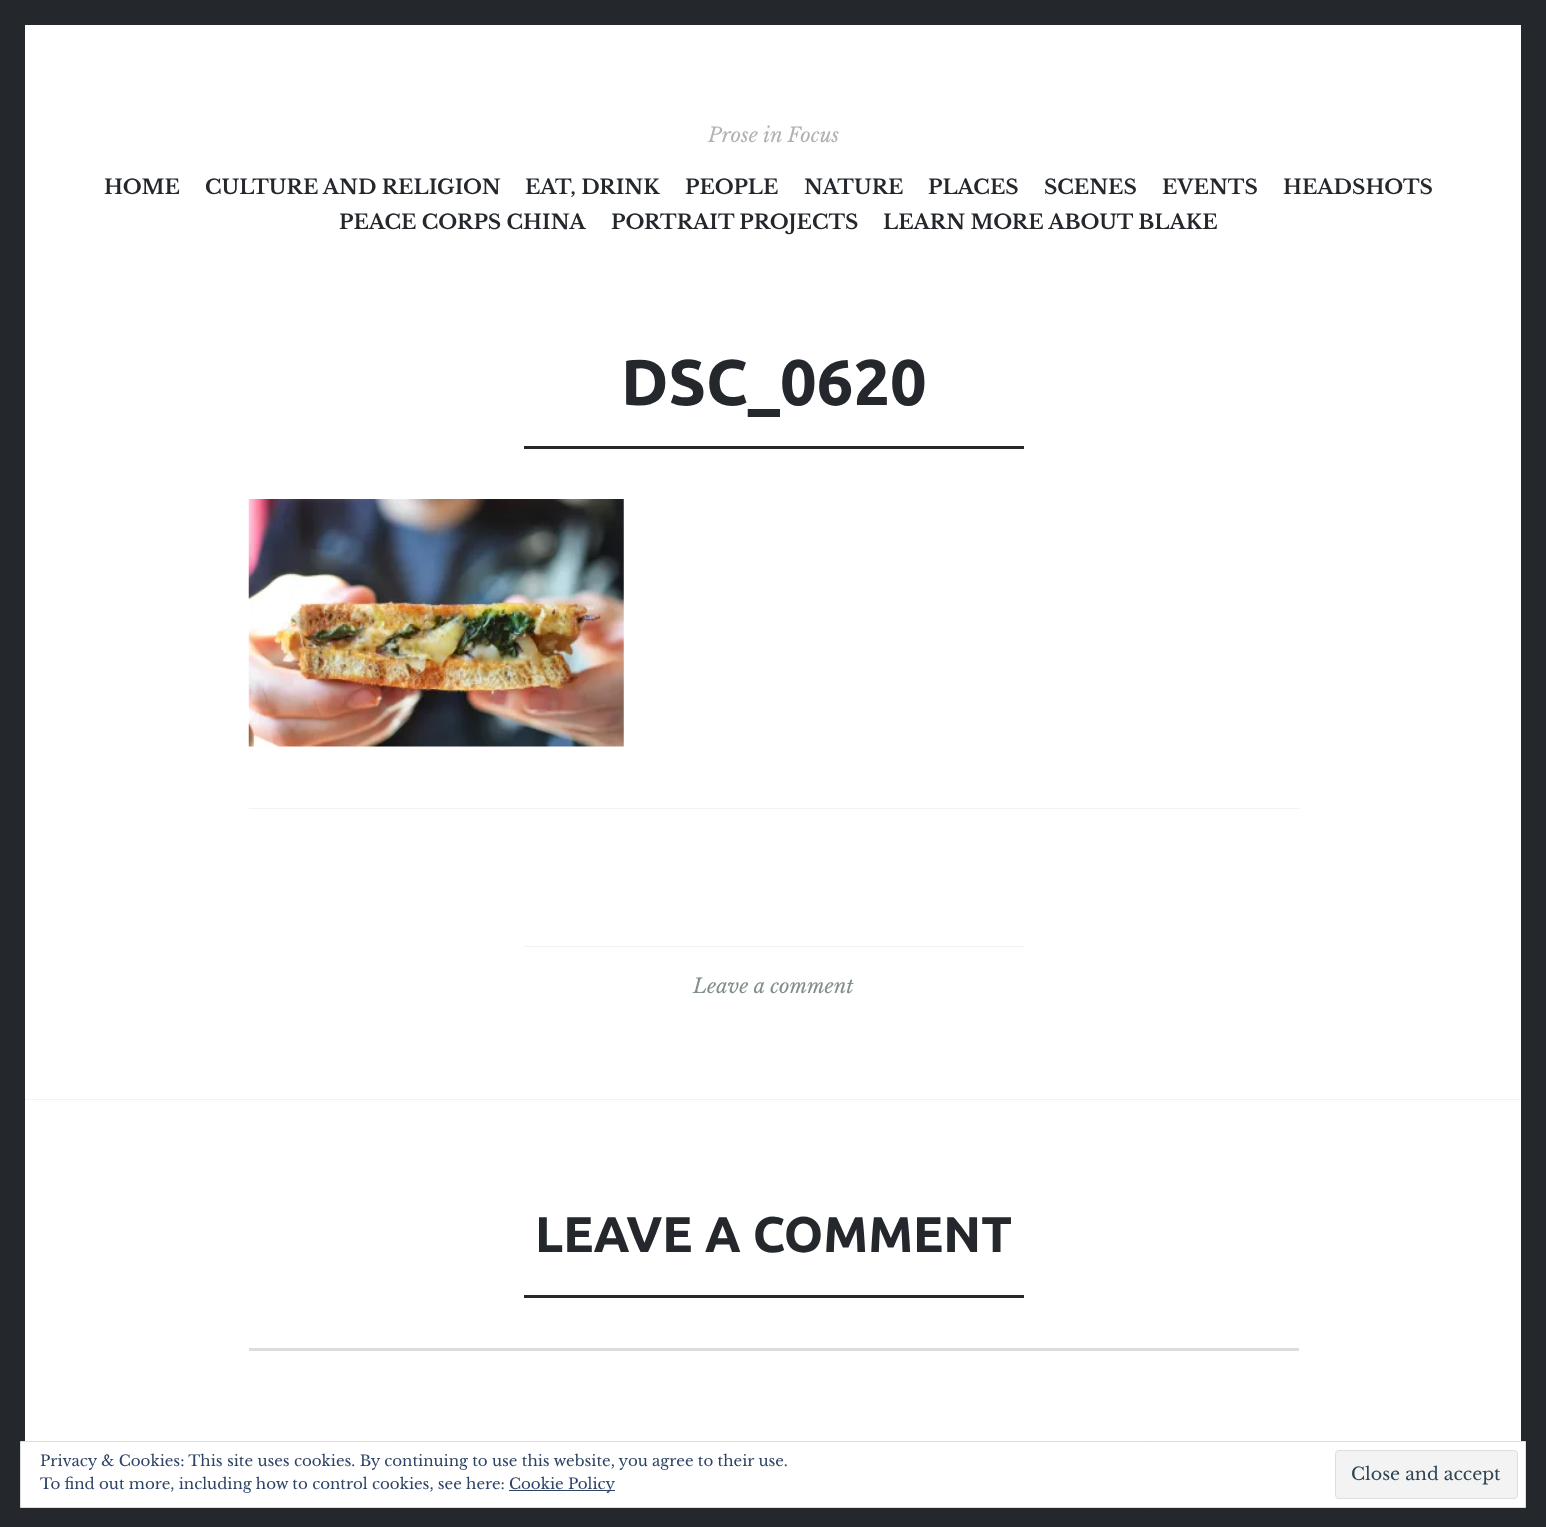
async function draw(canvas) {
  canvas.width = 1546;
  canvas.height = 1527;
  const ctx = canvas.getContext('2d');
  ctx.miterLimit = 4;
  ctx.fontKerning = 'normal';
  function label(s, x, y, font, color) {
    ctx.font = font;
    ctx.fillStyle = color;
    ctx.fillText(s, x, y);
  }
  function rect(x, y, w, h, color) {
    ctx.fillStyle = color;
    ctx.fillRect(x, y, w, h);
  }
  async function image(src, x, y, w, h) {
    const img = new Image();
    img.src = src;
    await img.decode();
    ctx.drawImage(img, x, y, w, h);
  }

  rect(0, 0, 1546, 1527, '#24282d');
  rect(25, 25, 1496, 1416, '#fff');
  label('Prose in Focus', 708, 142, 'italic 20.1px Libre Baskerville', '#b1b2b3');
  label('HOME', 104, 194, 'bold 20.1px Libre Baskerville', '#24282d');
  label('CULTURE AND RELIGION', 205, 194, 'bold 20.1px Libre Baskerville', '#24282d');
  label('EAT, DRINK', 525, 194, 'bold 20.1px Libre Baskerville', '#24282d');
  label('PEOPLE', 685, 194, 'bold 20.1px Libre Baskerville', '#24282d');
  label('NATURE', 804, 194, 'bold 20.1px Libre Baskerville', '#24282d');
  label('PLACES', 928, 194, 'bold 20.1px Libre Baskerville', '#24282d');
  label('SCENES', 1044, 194, 'bold 20.1px Libre Baskerville', '#24282d');
  label('EVENTS', 1162, 194, 'bold 20.1px Libre Baskerville', '#24282d');
  label('HEADSHOTS', 1283, 194, 'bold 20.1px Libre Baskerville', '#24282d');
  label('PEACE CORPS CHINA', 339, 229, 'bold 20.1px Libre Baskerville', '#24282d');
  label('PORTRAIT PROJECTS', 611, 229, 'bold 20.1px Libre Baskerville', '#24282d');
  label('LEARN MORE ABOUT BLAKE', 883, 229, 'bold 20.1px Libre Baskerville', '#24282d');
  label('DSC_0620', 621, 405, 'bold 64.5px Ubuntu', '#24282d');
  rect(524, 446, 500, 3, '#24282d');
  await image('assets/img1.png', 248, 499, 376, 248);
  rect(249, 808, 1050, 1, '#f1f2f3');
  rect(524, 946, 500, 1, '#f1f2f3');
  label('Leave a comment', 693, 993, 'italic 20.1px Libre Baskerville', '#7f8d8c');
  rect(25, 1099, 1496, 1, '#f1f2f3');
  label('LEAVE A COMMENT', 535, 1252, 'bold 50px Ubuntu', '#24282d');
  rect(524, 1295, 500, 3, '#24282d');
  rect(249, 1348, 1050, 3, '#dcdcde');
  ctx.fillStyle = '#fff';
  ctx.beginPath();
  ctx.rect(20.5, 1441.5, 1505, 66);
  ctx.fill();
  ctx.strokeStyle = '#dedede';
  ctx.stroke();
  label('Privacy & Cookies: This site uses cookies. By continuing to use this website, you agree to their use.', 40, 1466, '15px Libre Baskerville', '#2e4467');
  label('To find out more, including how to control cookies, see here:', 40, 1489, '15px Libre Baskerville', '#2e4467');
  rect(509, 1490, 106, 1, '#2e4467');
  label('Cookie Policy', 509, 1489, '15px Libre Baskerville', '#2e4467');
  ctx.fillStyle = '#f3f3f3';
  ctx.beginPath();
  ctx.roundRect(1335.5, 1450.5, 182, 48, 3.5);
  ctx.fill();
  ctx.stroke();
  label('Close and accept', 1351, 1480, '17.5px Libre Baskerville', '#2e4453');
}

draw(document.querySelector('canvas'));
